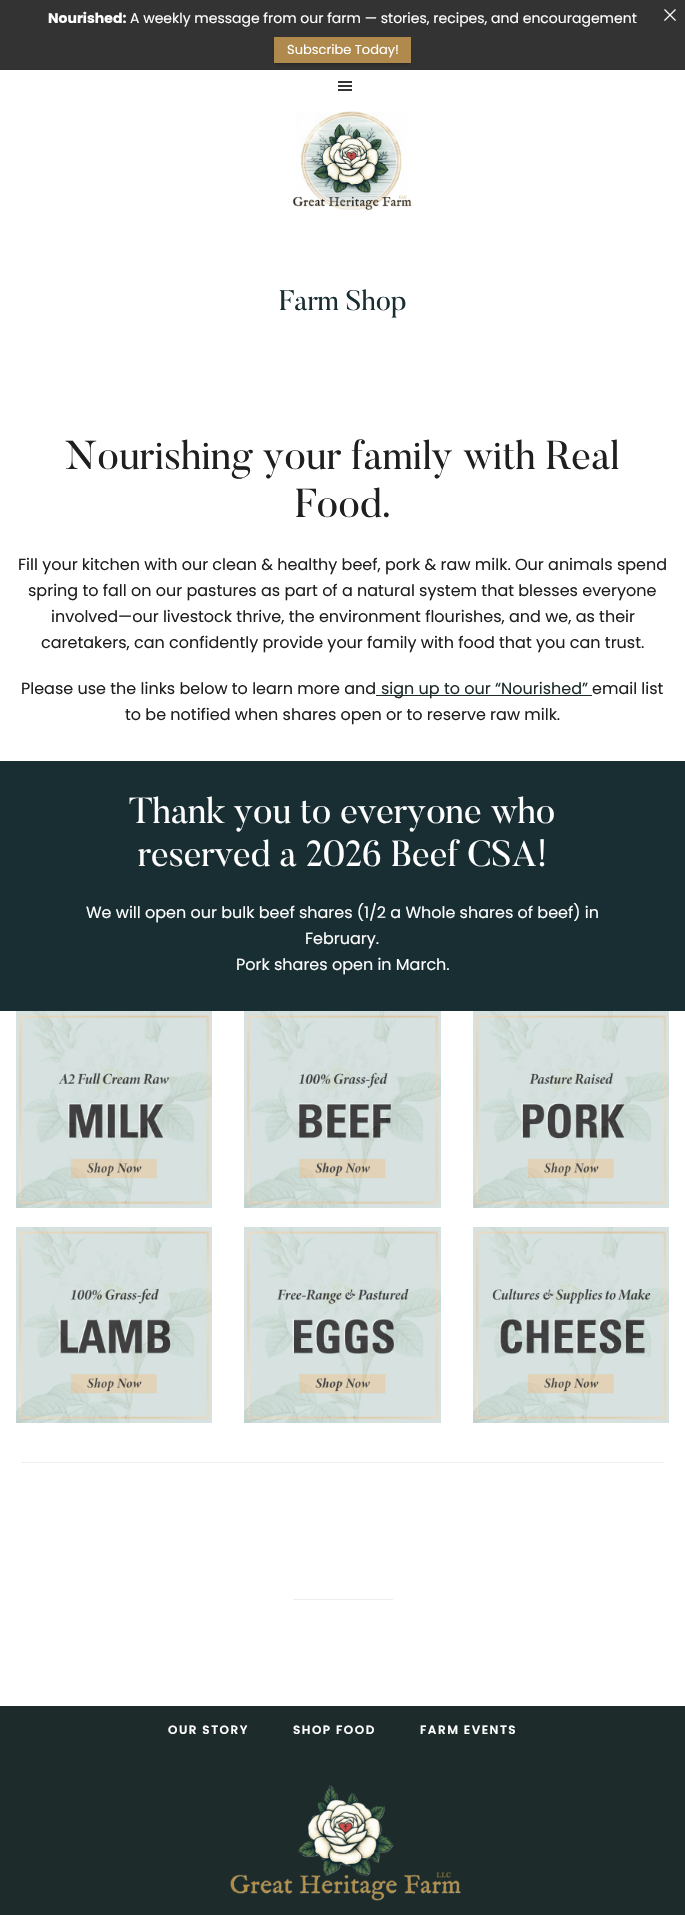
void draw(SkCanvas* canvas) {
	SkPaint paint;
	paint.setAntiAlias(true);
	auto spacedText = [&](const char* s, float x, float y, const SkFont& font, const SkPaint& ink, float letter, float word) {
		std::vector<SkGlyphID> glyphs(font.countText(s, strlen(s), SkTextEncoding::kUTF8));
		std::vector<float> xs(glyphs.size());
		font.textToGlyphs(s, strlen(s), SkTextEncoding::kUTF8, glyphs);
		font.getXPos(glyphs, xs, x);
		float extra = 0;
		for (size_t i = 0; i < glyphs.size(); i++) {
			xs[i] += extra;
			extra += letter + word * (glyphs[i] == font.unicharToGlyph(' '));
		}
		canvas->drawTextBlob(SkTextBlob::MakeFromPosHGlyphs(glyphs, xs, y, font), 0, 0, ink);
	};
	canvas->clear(0xffffffff);
	paint.setColor(0xff333333);
	canvas->drawRect(SkRect::MakeXYWH(0, 0, 685, 70), paint);
	SkFont f1(fontMgr->matchFamilyStyle("Poppins", SkFontStyle::Bold()), 14);
	f1.setSubpixel(true);
	paint.setColor(0xffffffff);
	canvas->drawString("Nourished:", 48, 23, f1, paint);
	SkFont f2(fontMgr->matchFamilyStyle("Poppins", SkFontStyle::Normal()), 14);
	f2.setSubpixel(true);
	canvas->drawString("A weekly message from our farm — stories, recipes, and encouragement", 130, 23, f2, paint);
	paint.setColor(0x80000000);
	paint.setMaskFilter(SkMaskFilter::MakeBlur(kNormal_SkBlurStyle, 2));
	canvas->drawRect(SkRect::MakeXYWH(276, 41, 133, 22), paint);
	paint.setMaskFilter(nullptr);
	paint.setColor(0xffb08a4c);
	canvas->drawRect(SkRect::MakeXYWH(274, 37, 137, 26), paint);
	SkFont f3(fontMgr->matchFamilyStyle("Poppins", SkFontStyle::Normal()), 13);
	f3.setSubpixel(true);
	paint.setColor(0xffffffff);
	canvas->drawString("Subscribe Today!", 287, 54, f3, paint);
	canvas->drawImageRect(SkImages::DeferredFromEncodedData(SkData::MakeFromFileName("img1.png")), SkRect::MakeXYWH(664, 9, 12, 12), SkSamplingOptions());
	canvas->drawImageRect(SkImages::DeferredFromEncodedData(SkData::MakeFromFileName("img2.png")), SkRect::MakeXYWH(338, 81, 14, 10), SkSamplingOptions());
	canvas->drawImageRect(SkImages::DeferredFromEncodedData(SkData::MakeFromFileName("img3.png")), SkRect::MakeXYWH(292, 111, 120, 99), SkSamplingOptions());
	SkFont f4(fontMgr->matchFamilyStyle("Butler", SkFontStyle::Normal()), 28);
	f4.setSubpixel(true);
	paint.setColor(0xff182e33);
	canvas->drawString("Farm Shop", 279, 310, f4, paint);
	SkFont f5(fontMgr->matchFamilyStyle("Butler", SkFontStyle::Normal()), 40);
	f5.setSubpixel(true);
	paint.setColor(0xff1f1f1f);
	canvas->drawString("Nourishing your family with Real", 65, 469, f5, paint);
	canvas->drawString("Food.", 295, 517, f5, paint);
	SkFont f6(fontMgr->matchFamilyStyle("Poppins", SkFontStyle::Normal()), 16);
	f6.setSubpixel(true);
	canvas->drawString("Fill your kitchen with our clean & healthy beef, pork & raw milk. Our animals spend", 18, 570, f6, paint);
	canvas->drawString("spring to fall on our pastures as part of a natural system that blesses everyone", 28, 596, f6, paint);
	canvas->drawString("involved—our livestock thrive, the environment flourishes, and we, as their", 51, 622, f6, paint);
	canvas->drawString("caretakers, can confidently provide your family with food that you can trust.", 41, 648, f6, paint);
	canvas->drawString("Please use the links below to learn more and", 21, 694, f6, paint);
	paint.setColor(0xff1d2b2b);
	canvas->drawRect(SkRect::MakeXYWH(376, 695, 216, 1), paint);
	canvas->drawString("sign up to our “Nourished”", 381, 694, f6, paint);
	paint.setColor(0xff1f1f1f);
	canvas->drawString("email list", 592, 694, f6, paint);
	canvas->drawString("to be notified when shares open or to reserve raw milk.", 125, 720, f6, paint);
	paint.setColor(0xff182e33);
	canvas->drawRect(SkRect::MakeXYWH(0, 761, 685, 250), paint);
	SkFont f7(fontMgr->matchFamilyStyle("Butler", SkFontStyle::Normal()), 36);
	f7.setSubpixel(true);
	paint.setColor(0xffffffff);
	canvas->drawString("Thank you to everyone who", 129, 823, f7, paint);
	canvas->drawString("reserved a 2026 Beef CSA!", 138, 866, f7, paint);
	canvas->drawString("We will open our bulk beef shares (1/2 a Whole shares of beef) in", 86, 918, f6, paint);
	canvas->drawString("February.", 305, 944, f6, paint);
	canvas->drawString("Pork shares open in March.", 236, 970, f6, paint);
	canvas->drawImageRect(SkImages::DeferredFromEncodedData(SkData::MakeFromFileName("img4.png")), SkRect::MakeXYWH(16, 1011, 196, 197), SkSamplingOptions());
	canvas->drawImageRect(SkImages::DeferredFromEncodedData(SkData::MakeFromFileName("img5.png")), SkRect::MakeXYWH(244, 1011, 197, 197), SkSamplingOptions());
	canvas->drawImageRect(SkImages::DeferredFromEncodedData(SkData::MakeFromFileName("img6.png")), SkRect::MakeXYWH(473, 1011, 196, 197), SkSamplingOptions());
	canvas->drawImageRect(SkImages::DeferredFromEncodedData(SkData::MakeFromFileName("img7.png")), SkRect::MakeXYWH(16, 1227, 196, 196), SkSamplingOptions());
	canvas->drawImageRect(SkImages::DeferredFromEncodedData(SkData::MakeFromFileName("img8.png")), SkRect::MakeXYWH(244, 1227, 197, 196), SkSamplingOptions());
	canvas->drawImageRect(SkImages::DeferredFromEncodedData(SkData::MakeFromFileName("img9.png")), SkRect::MakeXYWH(473, 1227, 196, 196), SkSamplingOptions());
	paint.setColor(0xffeeeeee);
	canvas->drawRect(SkRect::MakeXYWH(21, 1462, 643, 1), paint);
	canvas->drawRect(SkRect::MakeXYWH(293, 1599, 100, 1), paint);
	paint.setColor(0xff1d2b2b);
	canvas->drawRect(SkRect::MakeXYWH(0, 1706, 685, 209), paint);
	SkFont f8(fontMgr->matchFamilyStyle("Poppins", SkFontStyle(600, SkFontStyle::kNormal_Width, SkFontStyle::kUpright_Slant)), 12);
	f8.setSubpixel(true);
	paint.setColor(0xffffffff);
	spacedText("OUR STORY", 168, 1734, f8, paint, 1.5, 0);
	spacedText("SHOP FOOD", 293, 1734, f8, paint, 1.5, 0);
	spacedText("FARM EVENTS", 420, 1734, f8, paint, 1.5, 0);
	canvas->drawImageRect(SkImages::DeferredFromEncodedData(SkData::MakeFromFileName("img10.png")), SkRect::MakeXYWH(230, 1785, 231, 116), SkSamplingOptions());
}
